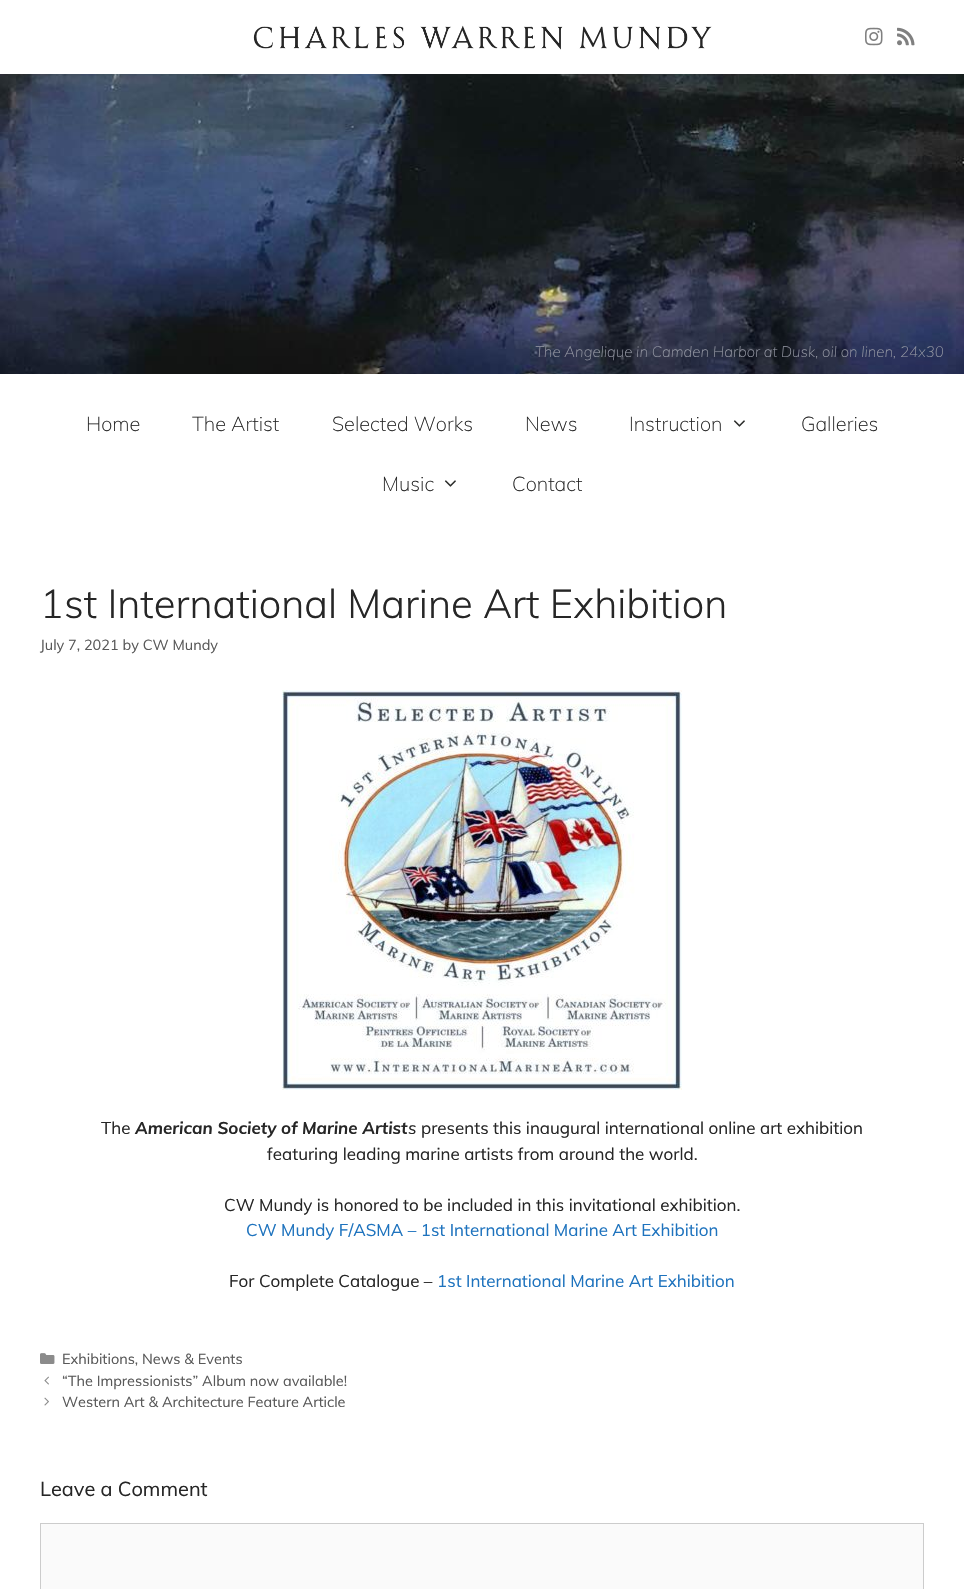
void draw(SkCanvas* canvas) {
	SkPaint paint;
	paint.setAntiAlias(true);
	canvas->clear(0xffffffff);
	canvas->drawImageRect(SkImages::DeferredFromEncodedData(SkData::MakeFromFileName("img1.png")), SkRect::MakeXYWH(253, 25, 459, 25), SkSamplingOptions());
	canvas->drawImageRect(SkImages::DeferredFromEncodedData(SkData::MakeFromFileName("img2.png")), SkRect::MakeXYWH(865, 27, 18, 19), SkSamplingOptions());
	canvas->drawImageRect(SkImages::DeferredFromEncodedData(SkData::MakeFromFileName("img3.png")), SkRect::MakeXYWH(897, 27, 18, 19), SkSamplingOptions());
	canvas->drawImageRect(SkImages::DeferredFromEncodedData(SkData::MakeFromFileName("img4.png")), SkRect::MakeXYWH(0, 74, 964, 300), SkSamplingOptions());
	SkFont f1(fontMgr->matchFamilyStyle("Muli", SkFontStyle(200, SkFontStyle::kNormal_Width, SkFontStyle::kItalic_Slant)), 15);
	f1.setSubpixel(true);
	paint.setColor(0xff9497a3);
	canvas->drawString("The Angelique in Camden Harbor at Dusk, oil on linen, 24x30", 535, 357, f1, paint);
	SkFont f2(fontMgr->matchFamilyStyle("Muli", SkFontStyle(200, SkFontStyle::kNormal_Width, SkFontStyle::kUpright_Slant)), 20);
	f2.setSubpixel(true);
	paint.setColor(0xff262626);
	canvas->drawString("Home", 86, 431, f2, paint);
	canvas->drawString("The Artist", 192, 431, f2, paint);
	canvas->drawString("Selected Works", 332, 431, f2, paint);
	canvas->drawString("News", 525, 431, f2, paint);
	canvas->drawString("Instruction", 629, 431, f2, paint);
	canvas->drawImageRect(SkImages::DeferredFromEncodedData(SkData::MakeFromFileName("img5.png")), SkRect::MakeXYWH(733, 420, 12, 7), SkSamplingOptions());
	canvas->drawString("Galleries", 801, 431, f2, paint);
	canvas->drawString("Music", 382, 491, f2, paint);
	canvas->drawImageRect(SkImages::DeferredFromEncodedData(SkData::MakeFromFileName("img5.png")), SkRect::MakeXYWH(444, 480, 12, 7), SkSamplingOptions());
	canvas->drawString("Contact", 512, 491, f2, paint);
	SkFont f3(fontMgr->matchFamilyStyle("Muli", SkFontStyle(300, SkFontStyle::kNormal_Width, SkFontStyle::kUpright_Slant)), 40);
	f3.setSubpixel(true);
	canvas->drawString("1st International Marine Art Exhibition", 40, 618, f3, paint);
	SkFont f4(fontMgr->matchFamilyStyle("Muli", SkFontStyle::Normal()), 14.5);
	f4.setSubpixel(true);
	paint.setColor(0xff595959);
	canvas->drawString("July 7, 2021 by CW Mundy", 40, 650, f4, paint);
	canvas->drawImageRect(SkImages::DeferredFromEncodedData(SkData::MakeFromFileName("img6.png")), SkRect::MakeXYWH(282, 690, 400, 400), SkSamplingOptions());
	SkFont f5(fontMgr->matchFamilyStyle("Muli", SkFontStyle::Normal()), 17);
	f5.setSubpixel(true);
	paint.setColor(0xff262626);
	canvas->drawString("The", 101, 1134, f5, paint);
	SkFont f6(fontMgr->matchFamilyStyle("Muli", SkFontStyle::BoldItalic()), 17);
	f6.setSubpixel(true);
	canvas->drawString("American Society of Marine Artist", 135, 1134, f6, paint);
	SkFont f7(fontMgr->matchFamilyStyle("Muli", SkFontStyle::Italic()), 17);
	f7.setSubpixel(true);
	canvas->drawString("s", 408, 1134, f7, paint);
	canvas->drawString("presents this inaugural international online art exhibition", 421, 1134, f5, paint);
	canvas->drawString("featuring leading marine artists from around the world.", 267, 1160, f5, paint);
	canvas->drawString("CW Mundy is honored to be included in this invitational exhibition.", 224, 1211, f5, paint);
	paint.setColor(0xff1e73be);
	canvas->drawString("CW Mundy F/ASMA – 1st International Marine Art Exhibition", 246, 1236, f5, paint);
	paint.setColor(0xff262626);
	canvas->drawString("For Complete Catalogue –", 229, 1287, f5, paint);
	paint.setColor(0xff1e73be);
	canvas->drawString("1st International Marine Art Exhibition", 437, 1287, f5, paint);
	canvas->drawImageRect(SkImages::DeferredFromEncodedData(SkData::MakeFromFileName("img7.png")), SkRect::MakeXYWH(40, 1353, 15, 11), SkSamplingOptions());
	paint.setColor(0xff595959);
	canvas->drawString("Exhibitions, News & Events", 62, 1364, f4, paint);
	canvas->drawImageRect(SkImages::DeferredFromEncodedData(SkData::MakeFromFileName("img8.png")), SkRect::MakeXYWH(44, 1376, 5, 9), SkSamplingOptions());
	canvas->drawString("“The Impressionists” Album now available!", 62, 1386, f4, paint);
	canvas->drawImageRect(SkImages::DeferredFromEncodedData(SkData::MakeFromFileName("img9.png")), SkRect::MakeXYWH(44, 1397, 5, 9), SkSamplingOptions());
	canvas->drawString("Western Art & Architecture Feature Article", 62, 1407, f4, paint);
	SkFont f8(fontMgr->matchFamilyStyle("Muli", SkFontStyle::Normal()), 20);
	f8.setSubpixel(true);
	paint.setColor(0xff262626);
	canvas->drawString("Leave a Comment", 40, 1496, f8, paint);
	paint.setColor(0xfffafafa);
	canvas->drawRect(SkRect::MakeXYWH(40.5, 1523.5, 883, 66), paint);
	paint.setStroke(true);
	paint.setStrokeWidth(1);
	paint.setColor(0xffcccccc);
	canvas->drawRect(SkRect::MakeXYWH(40.5, 1523.5, 883, 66), paint);
}
